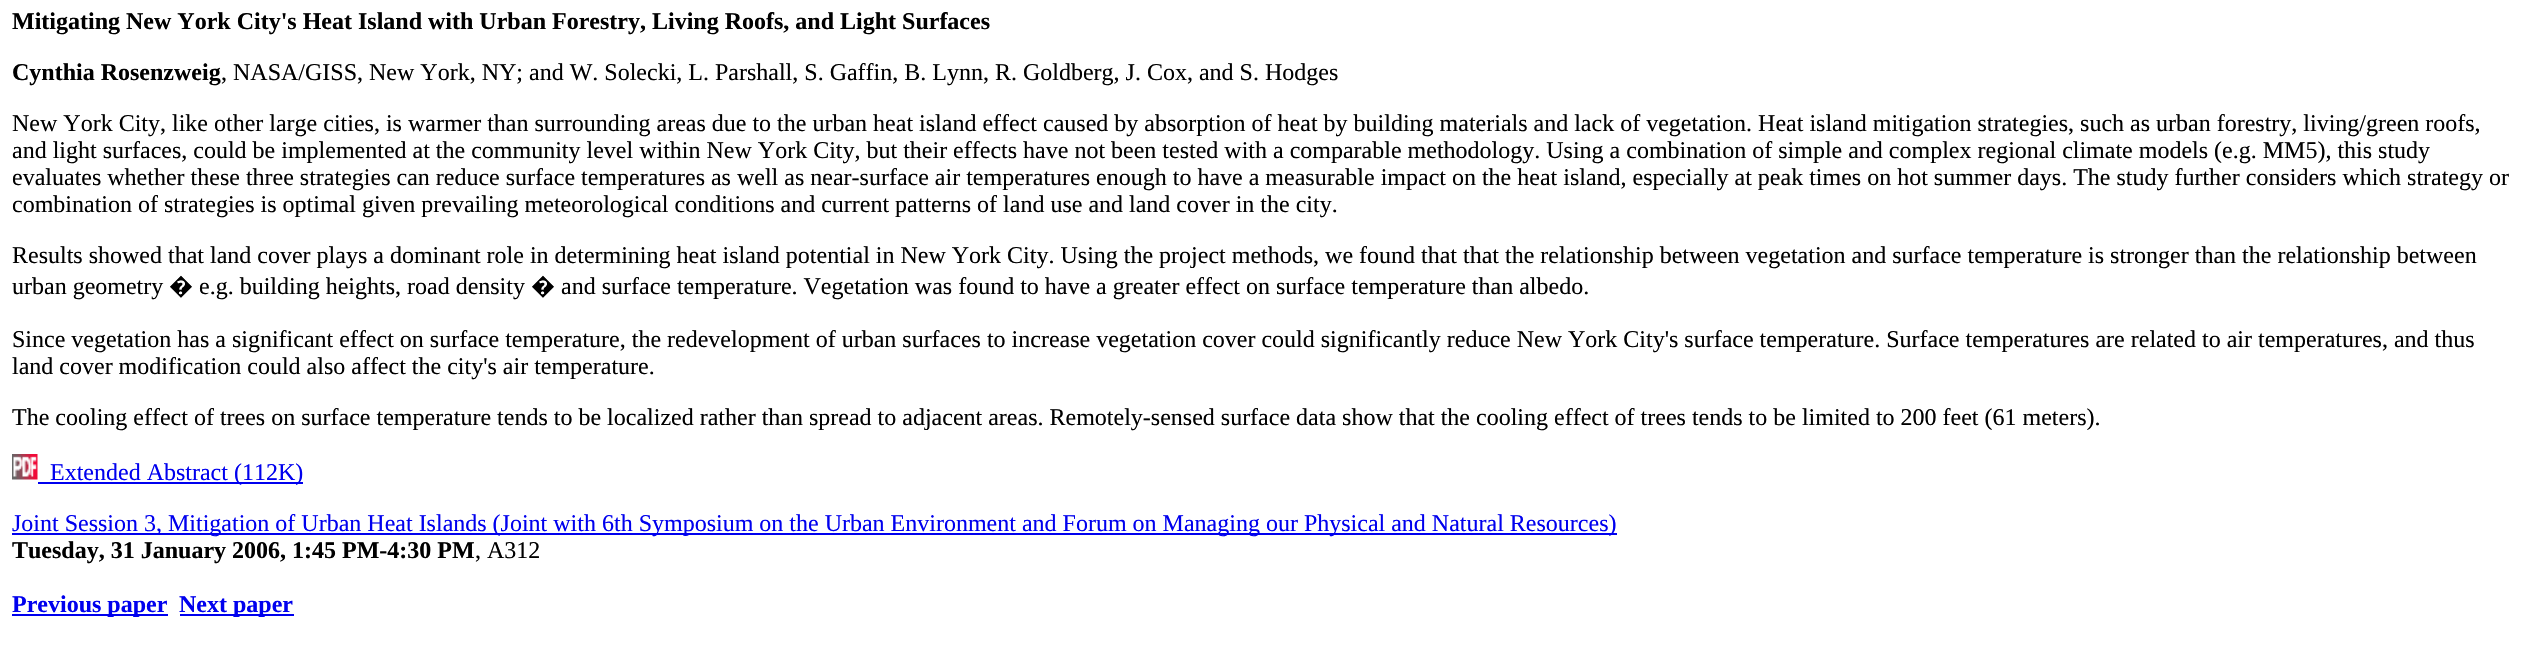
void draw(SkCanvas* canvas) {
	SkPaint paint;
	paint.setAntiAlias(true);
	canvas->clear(0xffffffff);
	SkFont f1(fontMgr->matchFamilyStyle("Liberation Serif", SkFontStyle::Bold()), 24);
	f1.setSubpixel(true);
	paint.setColor(0xff000000);
	canvas->drawString("Mitigating New York City's Heat Island with Urban Forestry, Living Roofs, and Light Surfaces", 12, 29, f1, paint);
	canvas->drawString("Cynthia Rosenzweig", 12, 80, f1, paint);
	SkFont f2(fontMgr->matchFamilyStyle("Liberation Serif", SkFontStyle::Normal()), 24);
	f2.setSubpixel(true);
	canvas->drawString(", NASA/GISS, New York, NY; and W. Solecki, L. Parshall, S. Gaffin, B. Lynn, R. Goldberg, J. Cox, and S. Hodges", 221, 80, f2, paint);
	canvas->drawString("New York City, like other large cities, is warmer than surrounding areas due to the urban heat island effect caused by absorption of heat by building materials and lack of vegetation. Heat island mitigation strategies, such as urban forestry, living/green roofs,", 12, 131, f2, paint);
	canvas->drawString("and light surfaces, could be implemented at the community level within New York City, but their effects have not been tested with a comparable methodology. Using a combination of simple and complex regional climate models (e.g. MM5), this study", 12, 158, f2, paint);
	canvas->drawString("evaluates whether these three strategies can reduce surface temperatures as well as near-surface air temperatures enough to have a measurable impact on the heat island, especially at peak times on hot summer days. The study further considers which strategy or", 12, 185, f2, paint);
	canvas->drawString("combination of strategies is optimal given prevailing meteorological conditions and current patterns of land use and land cover in the city.", 12, 212, f2, paint);
	canvas->drawString("Results showed that land cover plays a dominant role in determining heat island potential in New York City. Using the project methods, we found that that the relationship between vegetation and surface temperature is stronger than the relationship between", 12, 263, f2, paint);
	canvas->drawString("urban geometry", 12, 294, f2, paint);
	SkFont f3(fontMgr->matchFamilyStyle("Noto Sans", SkFontStyle::Normal()), 24);
	f3.setSubpixel(true);
	canvas->drawString("�", 169, 294, f3, paint);
	canvas->drawString("e.g. building heights, road density", 199, 294, f2, paint);
	canvas->drawString("�", 531, 294, f3, paint);
	canvas->drawString("and surface temperature. Vegetation was found to have a greater effect on surface temperature than albedo.", 561, 294, f2, paint);
	canvas->drawString("Since vegetation has a significant effect on surface temperature, the redevelopment of urban surfaces to increase vegetation cover could significantly reduce New York City's surface temperature. Surface temperatures are related to air temperatures, and thus", 12, 347, f2, paint);
	canvas->drawString("land cover modification could also affect the city's air temperature.", 12, 374, f2, paint);
	canvas->drawString("The cooling effect of trees on surface temperature tends to be localized rather than spread to adjacent areas. Remotely-sensed surface data show that the cooling effect of trees tends to be limited to 200 feet (61 meters).", 12, 425, f2, paint);
	canvas->drawImageRect(SkImages::DeferredFromEncodedData(SkData::MakeFromFileName("img1.png")), SkRect::MakeXYWH(12, 454, 26, 26), SkSamplingOptions());
	paint.setColor(0xff0000ee);
	canvas->drawRect(SkRect::MakeXYWH(38, 482, 265, 2), paint);
	canvas->drawString("Extended Abstract (112K)", 50, 480, f2, paint);
	canvas->drawRect(SkRect::MakeXYWH(12, 533, 1605, 2), paint);
	canvas->drawString("Joint Session 3, Mitigation of Urban Heat Islands (Joint with 6th Symposium on the Urban Environment and Forum on Managing our Physical and Natural Resources)", 12, 531, f2, paint);
	paint.setColor(0xff000000);
	canvas->drawString("Tuesday, 31 January 2006, 1:45 PM-4:30 PM", 12, 558, f1, paint);
	canvas->drawString(", A312", 475, 558, f2, paint);
	paint.setColor(0xff0000ee);
	canvas->drawRect(SkRect::MakeXYWH(12, 614, 156, 2), paint);
	canvas->drawString("Previous paper", 12, 612, f1, paint);
	canvas->drawRect(SkRect::MakeXYWH(180, 614, 114, 2), paint);
	canvas->drawString("Next paper", 179, 612, f1, paint);
}
